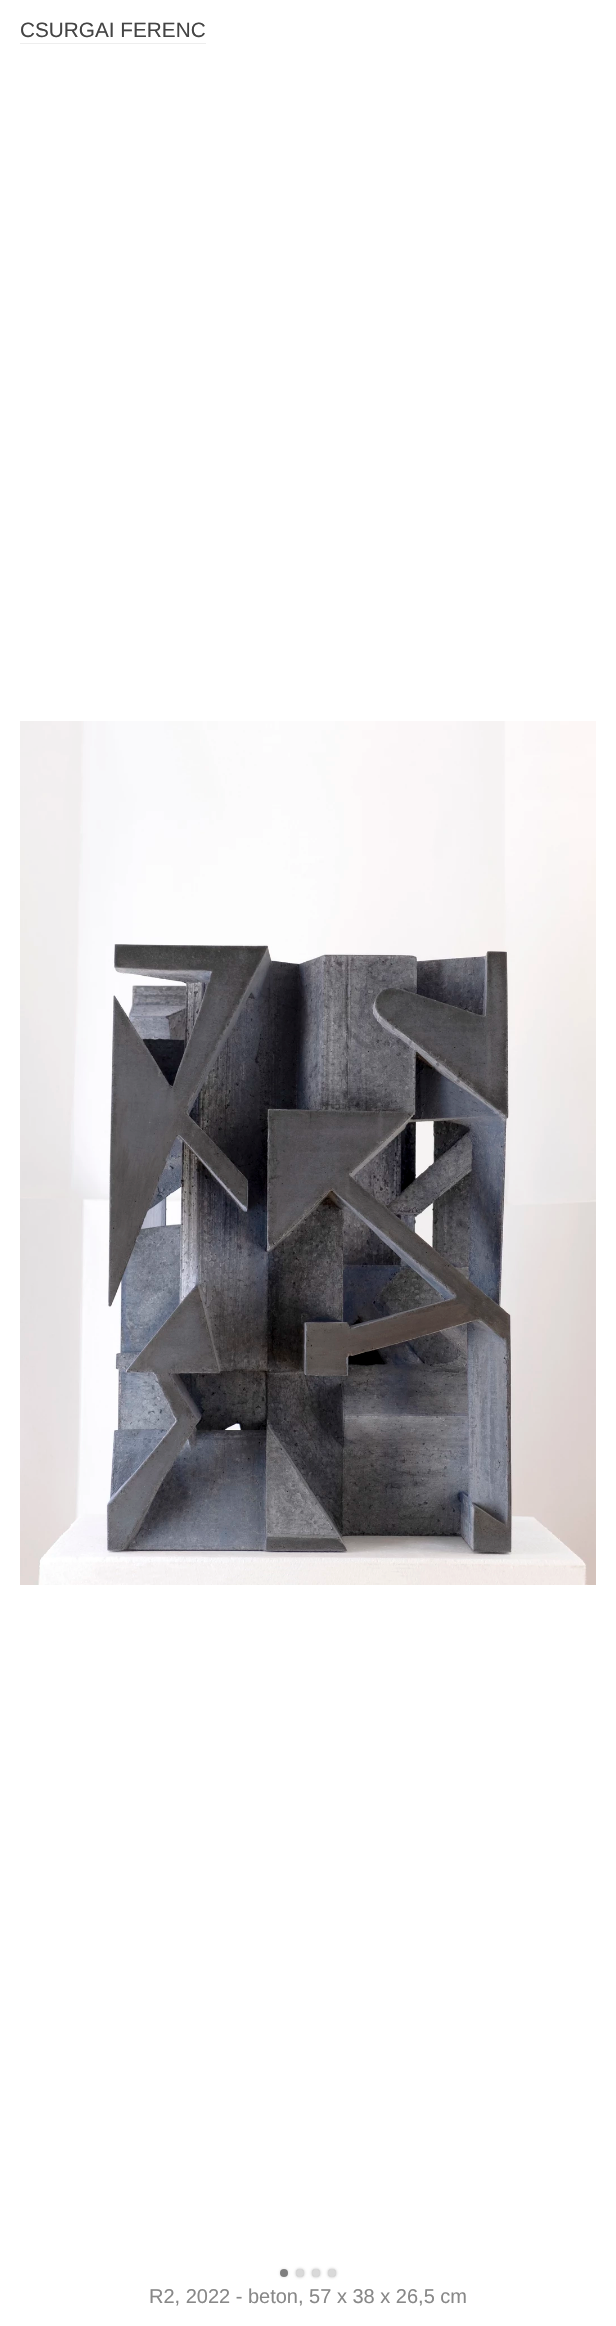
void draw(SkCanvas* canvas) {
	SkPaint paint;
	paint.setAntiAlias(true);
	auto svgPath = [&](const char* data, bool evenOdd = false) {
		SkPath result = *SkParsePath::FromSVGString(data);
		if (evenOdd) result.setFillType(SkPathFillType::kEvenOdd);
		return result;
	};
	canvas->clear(0xffffffff);
	SkFont f1(fontMgr->matchFamilyStyle("Liberation Sans", SkFontStyle::Normal()), 20.75);
	f1.setSubpixel(true);
	paint.setColor(0xff444444);
	canvas->drawString("CSURGAI FERENC", 20, 37, f1, paint);
	paint.setColor(0xffeeeeee);
	canvas->drawRect(SkRect::MakeXYWH(20, 43, 186, 1), paint);
	canvas->drawImageRect(SkImages::DeferredFromEncodedData(SkData::MakeFromFileName("img1.png")), SkRect::MakeXYWH(20, 721, 576, 864), SkSamplingOptions());
	canvas->save();
	canvas->clipPath(svgPath("M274 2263H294V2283H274ZM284 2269C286 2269 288 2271 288 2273C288 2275 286 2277 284 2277C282 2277 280 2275 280 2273C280 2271 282 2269 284 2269Z", true), true);
	paint.setColor(0x4d808080);
	paint.setMaskFilter(SkMaskFilter::MakeBlur(kNormal_SkBlurStyle, 1.5));
	canvas->drawRoundRect(SkRect::MakeXYWH(280, 2269, 8, 8), 4, 4, paint);
	paint.setMaskFilter(nullptr);
	canvas->restore();
	paint.setColor(0x80000000);
	canvas->drawCircle(284, 2273, 4, paint);
	canvas->save();
	canvas->clipPath(svgPath("M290 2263H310V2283H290ZM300 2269C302 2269 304 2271 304 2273C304 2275 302 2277 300 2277C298 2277 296 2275 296 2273C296 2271 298 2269 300 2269Z", true), true);
	paint.setColor(0x4d000000);
	paint.setMaskFilter(SkMaskFilter::MakeBlur(kNormal_SkBlurStyle, 1.5));
	canvas->drawRoundRect(SkRect::MakeXYWH(296, 2269, 8, 8), 4, 4, paint);
	paint.setMaskFilter(nullptr);
	canvas->restore();
	paint.setColor(0x4d808080);
	canvas->drawCircle(300, 2273, 4, paint);
	canvas->save();
	canvas->clipPath(svgPath("M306 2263H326V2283H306ZM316 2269C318 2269 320 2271 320 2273C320 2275 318 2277 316 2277C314 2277 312 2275 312 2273C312 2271 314 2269 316 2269Z", true), true);
	paint.setColor(0x4d000000);
	paint.setMaskFilter(SkMaskFilter::MakeBlur(kNormal_SkBlurStyle, 1.5));
	canvas->drawRoundRect(SkRect::MakeXYWH(312, 2269, 8, 8), 4, 4, paint);
	paint.setMaskFilter(nullptr);
	canvas->restore();
	paint.setColor(0x4d808080);
	canvas->drawCircle(316, 2273, 4, paint);
	canvas->save();
	canvas->clipPath(svgPath("M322 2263H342V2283H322ZM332 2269C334 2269 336 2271 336 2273C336 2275 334 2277 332 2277C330 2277 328 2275 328 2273C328 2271 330 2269 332 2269Z", true), true);
	paint.setColor(0x4d000000);
	paint.setMaskFilter(SkMaskFilter::MakeBlur(kNormal_SkBlurStyle, 1.5));
	canvas->drawRoundRect(SkRect::MakeXYWH(328, 2269, 8, 8), 4, 4, paint);
	paint.setMaskFilter(nullptr);
	canvas->restore();
	paint.setColor(0x4d808080);
	canvas->drawCircle(332, 2273, 4, paint);
	SkFont f2(fontMgr->matchFamilyStyle("Liberation Sans", SkFontStyle::Normal()), 20);
	f2.setSubpixel(true);
	paint.setColor(0xff888888);
	canvas->drawString("R2, 2022 - beton, 57 x 38 x 26,5 cm", 149, 2303, f2, paint);
}
